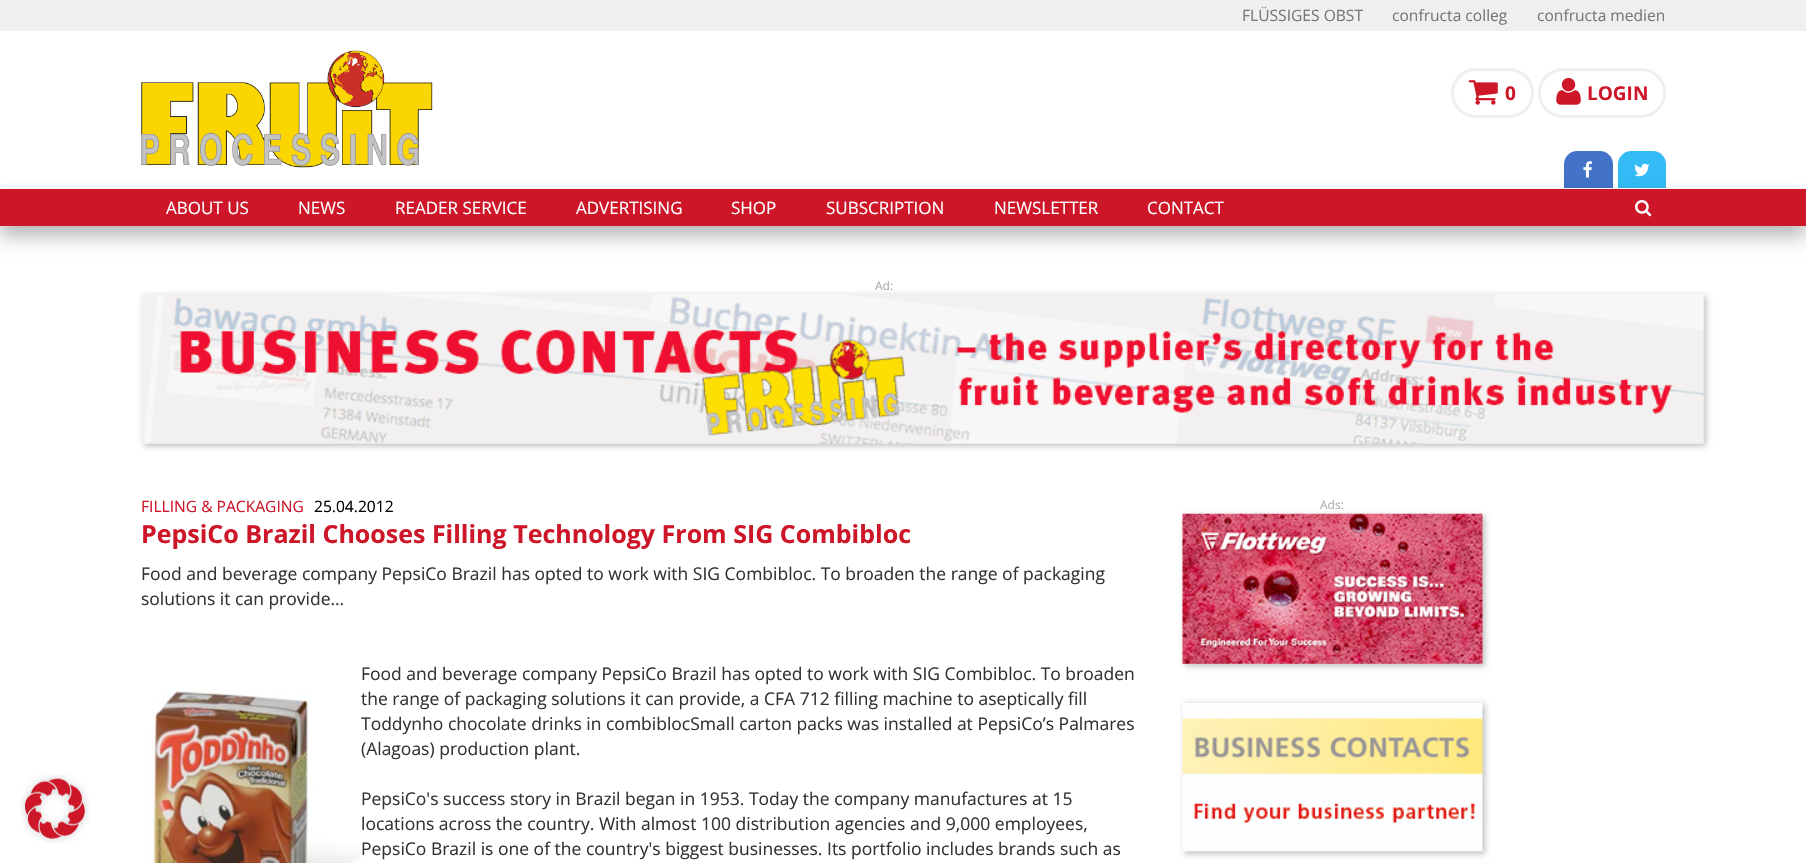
void draw(SkCanvas* canvas) {
	SkPaint paint;
	paint.setAntiAlias(true);
	auto svgPath = [&](const char* data, bool evenOdd = false) {
		SkPath result = *SkParsePath::FromSVGString(data);
		if (evenOdd) result.setFillType(SkPathFillType::kEvenOdd);
		return result;
	};
	canvas->clear(0xffffffff);
	paint.setColor(0xffefefef);
	canvas->drawRect(SkRect::MakeXYWH(0, 0, 1806, 31), paint);
	SkFont f1(fontMgr->matchFamilyStyle("Open Sans", SkFontStyle::Normal()), 15.6);
	f1.setSubpixel(true);
	paint.setColor(0xff777777);
	canvas->drawString("FLÜSSIGES OBST", 1242, 21, f1, paint);
	canvas->drawString("confructa colleg", 1392, 21, f1, paint);
	canvas->drawString("confructa medien", 1537, 21, f1, paint);
	canvas->drawImageRect(SkImages::DeferredFromEncodedData(SkData::MakeFromFileName("img1.png")), SkRect::MakeXYWH(141, 50, 292, 118), SkSamplingOptions());
	paint.setStroke(true);
	paint.setStrokeWidth(3);
	paint.setColor(0xffefefef);
	canvas->drawRoundRect(SkRect::MakeXYWH(1452.5, 69.5, 80, 47), 23.5, 23.5, paint);
	canvas->drawImageRect(SkImages::DeferredFromEncodedData(SkData::MakeFromFileName("img2.png")), SkRect::MakeXYWH(1468, 80, 30, 25), SkSamplingOptions());
	SkFont f2(fontMgr->matchFamilyStyle("Open Sans", SkFontStyle::Bold()), 19);
	f2.setSubpixel(true);
	paint.setStroke(false);
	paint.setColor(0xffcd1628);
	canvas->drawString("0", 1505, 100, f2, paint);
	paint.setStroke(true);
	paint.setColor(0xffefefef);
	canvas->drawRoundRect(SkRect::MakeXYWH(1539.5, 69.5, 125, 47), 23.5, 23.5, paint);
	canvas->drawImageRect(SkImages::DeferredFromEncodedData(SkData::MakeFromFileName("img3.png")), SkRect::MakeXYWH(1556, 77, 25, 28), SkSamplingOptions());
	paint.setStroke(false);
	paint.setColor(0xffcd1628);
	canvas->drawString("LOGIN", 1587, 100, f2, paint);
	paint.setColor(0xff4273c8);
	canvas->drawPath(svgPath("M1577 151H1600C1607 151 1613 157 1613 164V189H1564V164C1564 157 1570 151 1577 151Z"), paint);
	paint.setColor(0xffffffff);
	canvas->drawRect(SkRect::MakeXYWH(1564, 188, 49, 1), paint);
	canvas->drawImageRect(SkImages::DeferredFromEncodedData(SkData::MakeFromFileName("img4.png")), SkRect::MakeXYWH(1583, 161, 9, 17), SkSamplingOptions());
	paint.setColor(0xff32bbf5);
	canvas->drawPath(svgPath("M1631 151H1653C1660 151 1666 157 1666 164V189H1618V164C1618 157 1624 151 1631 151Z"), paint);
	paint.setColor(0xffffffff);
	canvas->drawRect(SkRect::MakeXYWH(1618, 188, 48, 1), paint);
	canvas->drawImageRect(SkImages::DeferredFromEncodedData(SkData::MakeFromFileName("img5.png")), SkRect::MakeXYWH(1634, 163, 16, 14), SkSamplingOptions());
	paint.setColor(0x4a000000);
	paint.setMaskFilter(SkMaskFilter::MakeBlur(kNormal_SkBlurStyle, 9.5));
	canvas->drawRect(SkRect::MakeXYWH(0, 199, 1806, 37), paint);
	paint.setMaskFilter(nullptr);
	paint.setColor(0xffcd1628);
	canvas->drawRect(SkRect::MakeXYWH(0, 189, 1806, 37), paint);
	SkFont f3(fontMgr->matchFamilyStyle("Open Sans", SkFontStyle::Normal()), 17);
	f3.setSubpixel(true);
	paint.setColor(0xffffffff);
	canvas->drawString("ABOUT US", 166, 214, f3, paint);
	canvas->drawString("NEWS", 298, 214, f3, paint);
	canvas->drawString("READER SERVICE", 395, 214, f3, paint);
	canvas->drawString("ADVERTISING", 576, 214, f3, paint);
	canvas->drawString("SHOP", 731, 214, f3, paint);
	canvas->drawString("SUBSCRIPTION", 826, 214, f3, paint);
	canvas->drawString("NEWSLETTER", 994, 214, f3, paint);
	canvas->drawString("CONTACT", 1147, 214, f3, paint);
	canvas->drawImageRect(SkImages::DeferredFromEncodedData(SkData::MakeFromFileName("img6.png")), SkRect::MakeXYWH(1635, 200, 17, 17), SkSamplingOptions());
	canvas->drawImageRect(SkImages::DeferredFromEncodedData(SkData::MakeFromFileName("img7.png")), SkRect::MakeXYWH(20, 774, 70, 69), SkSamplingOptions());
	SkFont f4(fontMgr->matchFamilyStyle("Open Sans", SkFontStyle::Normal()), 12);
	f4.setSubpixel(true);
	paint.setColor(0xffaaaaaa);
	canvas->drawString("Ad:", 875, 290, f4, paint);
	paint.setColor(0x40000000);
	paint.setMaskFilter(SkMaskFilter::MakeBlur(kNormal_SkBlurStyle, 3));
	canvas->drawRect(SkRect::MakeXYWH(144, 296, 1562, 150), paint);
	paint.setMaskFilter(nullptr);
	canvas->drawImageRect(SkImages::DeferredFromEncodedData(SkData::MakeFromFileName("img8.png")), SkRect::MakeXYWH(141, 294, 1563, 150), SkSamplingOptions());
	paint.setColor(0xffcd1628);
	canvas->drawString("FILLING & PACKAGING", 141, 512, f1, paint);
	paint.setColor(0xff000000);
	canvas->drawString("25.04.2012", 314, 512, f1, paint);
	SkFont f5(fontMgr->matchFamilyStyle("Open Sans", SkFontStyle::Bold()), 25);
	f5.setSubpixel(true);
	paint.setColor(0xffcd1628);
	canvas->drawString("PepsiCo Brazil Chooses Filling Technology From SIG Combibloc", 141, 543, f5, paint);
	SkFont f6(fontMgr->matchFamilyStyle("Open Sans", SkFontStyle::Normal()), 17.5);
	f6.setSubpixel(true);
	paint.setColor(0xff333333);
	canvas->drawString("Food and beverage company PepsiCo Brazil has opted to work with SIG Combibloc. To broaden the range of packaging", 141, 580, f6, paint);
	canvas->drawString("solutions it can provide…", 141, 605, f6, paint);
	canvas->drawString("Food and beverage company PepsiCo Brazil has opted to work with SIG Combibloc. To broaden", 361, 680, f6, paint);
	canvas->drawImageRect(SkImages::DeferredFromEncodedData(SkData::MakeFromFileName("img9.png")), SkRect::MakeXYWH(144, 689, 217, 174), SkSamplingOptions());
	canvas->drawString("the range of packaging solutions it can provide, a CFA 712 filling machine to aseptically fill", 361, 705, f6, paint);
	canvas->drawString("Toddynho chocolate drinks in combiblocSmall carton packs was installed at PepsiCo’s Palmares", 361, 730, f6, paint);
	canvas->drawString("(Alagoas) production plant.", 361, 755, f6, paint);
	canvas->drawString("PepsiCo's success story in Brazil began in 1953. Today the company manufactures at 15", 361, 805, f6, paint);
	canvas->drawString("locations across the country. With almost 100 distribution agencies and 9,000 employees,", 361, 830, f6, paint);
	canvas->drawString("PepsiCo Brazil is one of the country's biggest businesses. Its portfolio includes brands such as", 361, 855, f6, paint);
	paint.setColor(0xffaaaaaa);
	canvas->drawString("Ads:", 1320, 509, f4, paint);
	paint.setColor(0x40000000);
	paint.setMaskFilter(SkMaskFilter::MakeBlur(kNormal_SkBlurStyle, 3));
	canvas->drawRect(SkRect::MakeXYWH(1185, 516, 300, 150), paint);
	paint.setMaskFilter(nullptr);
	canvas->drawImageRect(SkImages::DeferredFromEncodedData(SkData::MakeFromFileName("img10.png")), SkRect::MakeXYWH(1182, 513, 301, 151), SkSamplingOptions());
	paint.setMaskFilter(SkMaskFilter::MakeBlur(kNormal_SkBlurStyle, 3));
	canvas->drawRect(SkRect::MakeXYWH(1185, 704, 300, 150), paint);
	paint.setMaskFilter(nullptr);
	canvas->drawImageRect(SkImages::DeferredFromEncodedData(SkData::MakeFromFileName("img11.png")), SkRect::MakeXYWH(1182, 703, 301, 149), SkSamplingOptions());
}
